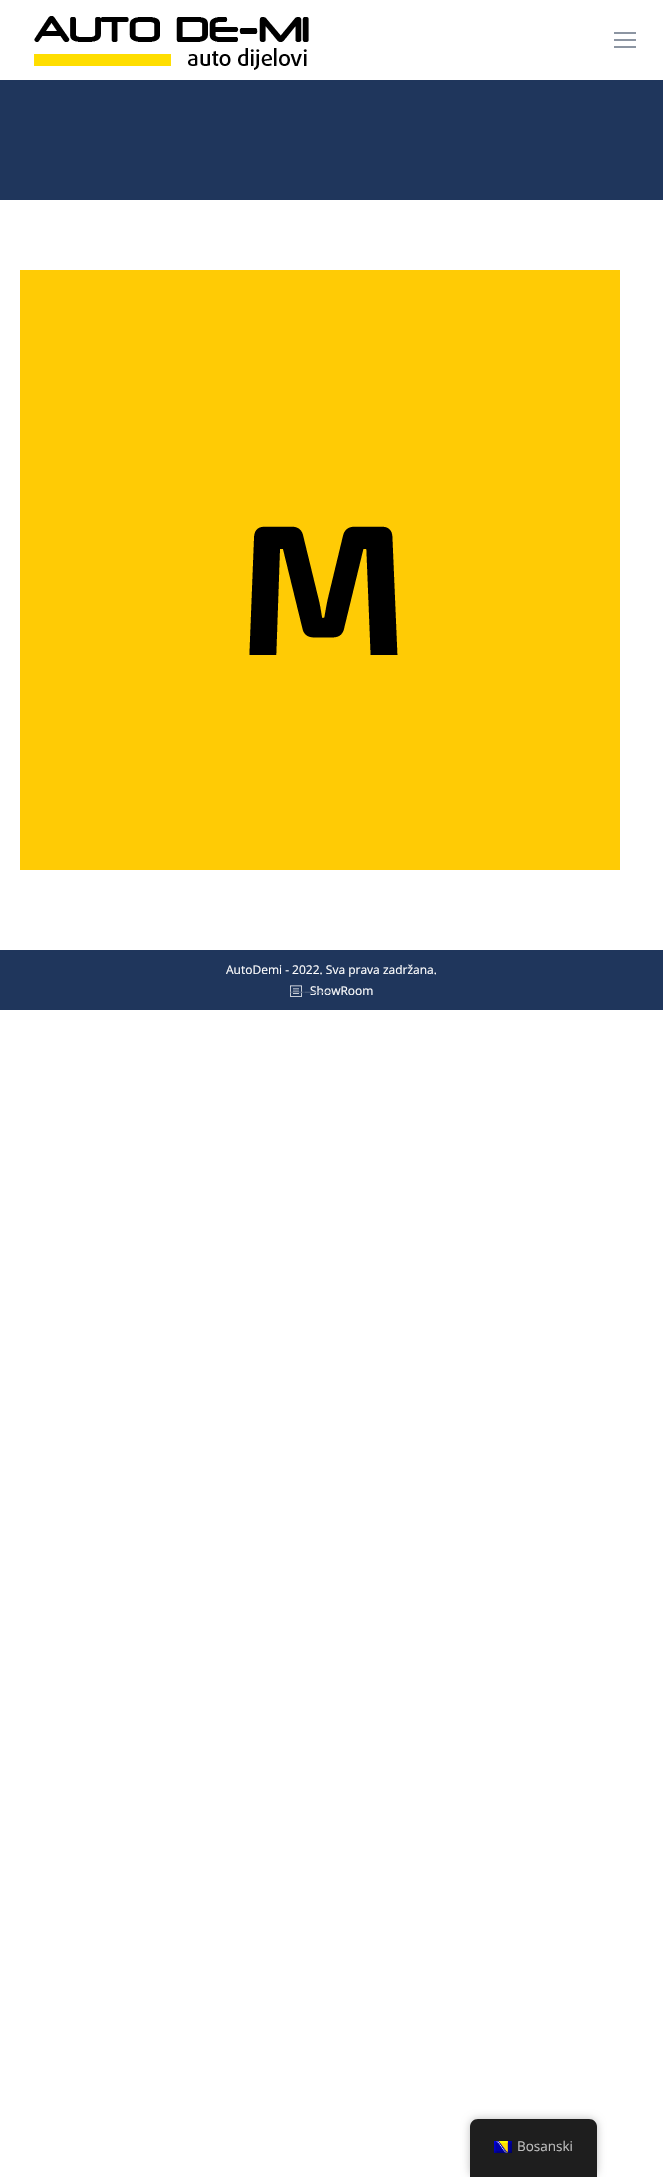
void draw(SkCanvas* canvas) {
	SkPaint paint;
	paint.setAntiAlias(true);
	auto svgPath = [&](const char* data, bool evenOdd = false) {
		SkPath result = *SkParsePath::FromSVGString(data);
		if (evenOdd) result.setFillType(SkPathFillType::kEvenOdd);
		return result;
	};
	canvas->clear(0xffffffff);
	canvas->drawImageRect(SkImages::DeferredFromEncodedData(SkData::MakeFromFileName("img1.png")), SkRect::MakeXYWH(34, 16, 275, 54), SkSamplingOptions());
	paint.setColor(0xff8c95a2);
	canvas->drawRect(SkRect::MakeXYWH(614, 32, 22, 2), paint);
	canvas->drawRect(SkRect::MakeXYWH(614, 39, 22, 2), paint);
	canvas->drawRect(SkRect::MakeXYWH(614, 46, 22, 2), paint);
	paint.setColor(0xff1f365c);
	canvas->drawRect(SkRect::MakeXYWH(0, 80, 663, 120), paint);
	canvas->drawImageRect(SkImages::DeferredFromEncodedData(SkData::MakeFromFileName("img2.png")), SkRect::MakeXYWH(20, 270, 600, 600), SkSamplingOptions());
	canvas->drawRect(SkRect::MakeXYWH(0, 950, 663, 60), paint);
	SkFont f1(fontMgr->matchFamilyStyle("Open Sans", SkFontStyle::Normal()), 12);
	f1.setSubpixel(true);
	paint.setColor(0xffffffff);
	canvas->drawString("AutoDemi - 2022. Sva prava zadržana.", 226, 974, f1, paint);
	canvas->drawImageRect(SkImages::DeferredFromEncodedData(SkData::MakeFromFileName("img3.png")), SkRect::MakeXYWH(290, 985, 12, 12), SkSamplingOptions());
	canvas->drawString("ShowRoom", 310, 995, f1, paint);
	SkFont f2(fontMgr->matchFamilyStyle("Open Sans", SkFontStyle::Normal()), 14);
	f2.setSubpixel(true);
	paint.setColor(0xff4c5e7c);
	canvas->drawString("———", 290, 996, f2, paint);
	paint.setColor(0x40000000);
	paint.setMaskFilter(SkMaskFilter::MakeBlur(kNormal_SkBlurStyle, 4));
	canvas->drawRoundRect(SkRect::MakeXYWH(470, 2119, 127, 58), 8, 8, paint);
	paint.setMaskFilter(nullptr);
	paint.setColor(0xff1e1e1e);
	canvas->drawPath(svgPath("M478 2119H589C593.5 2119 597 2122.5 597 2127V2177H470V2127C470 2122.5 473.5 2119 478 2119Z"), paint);
	canvas->drawImageRect(SkImages::DeferredFromEncodedData(SkData::MakeFromFileName("img4.png")), SkRect::MakeXYWH(494, 2141, 18, 12), SkSamplingOptions());
	SkFont f3(fontMgr->matchFamilyStyle("Open Sans", SkFontStyle::Normal()), 13.5);
	f3.setSubpixel(true);
	paint.setColor(0xffbdbdbd);
	canvas->drawString("Bosanski", 517, 2151, f3, paint);
}
